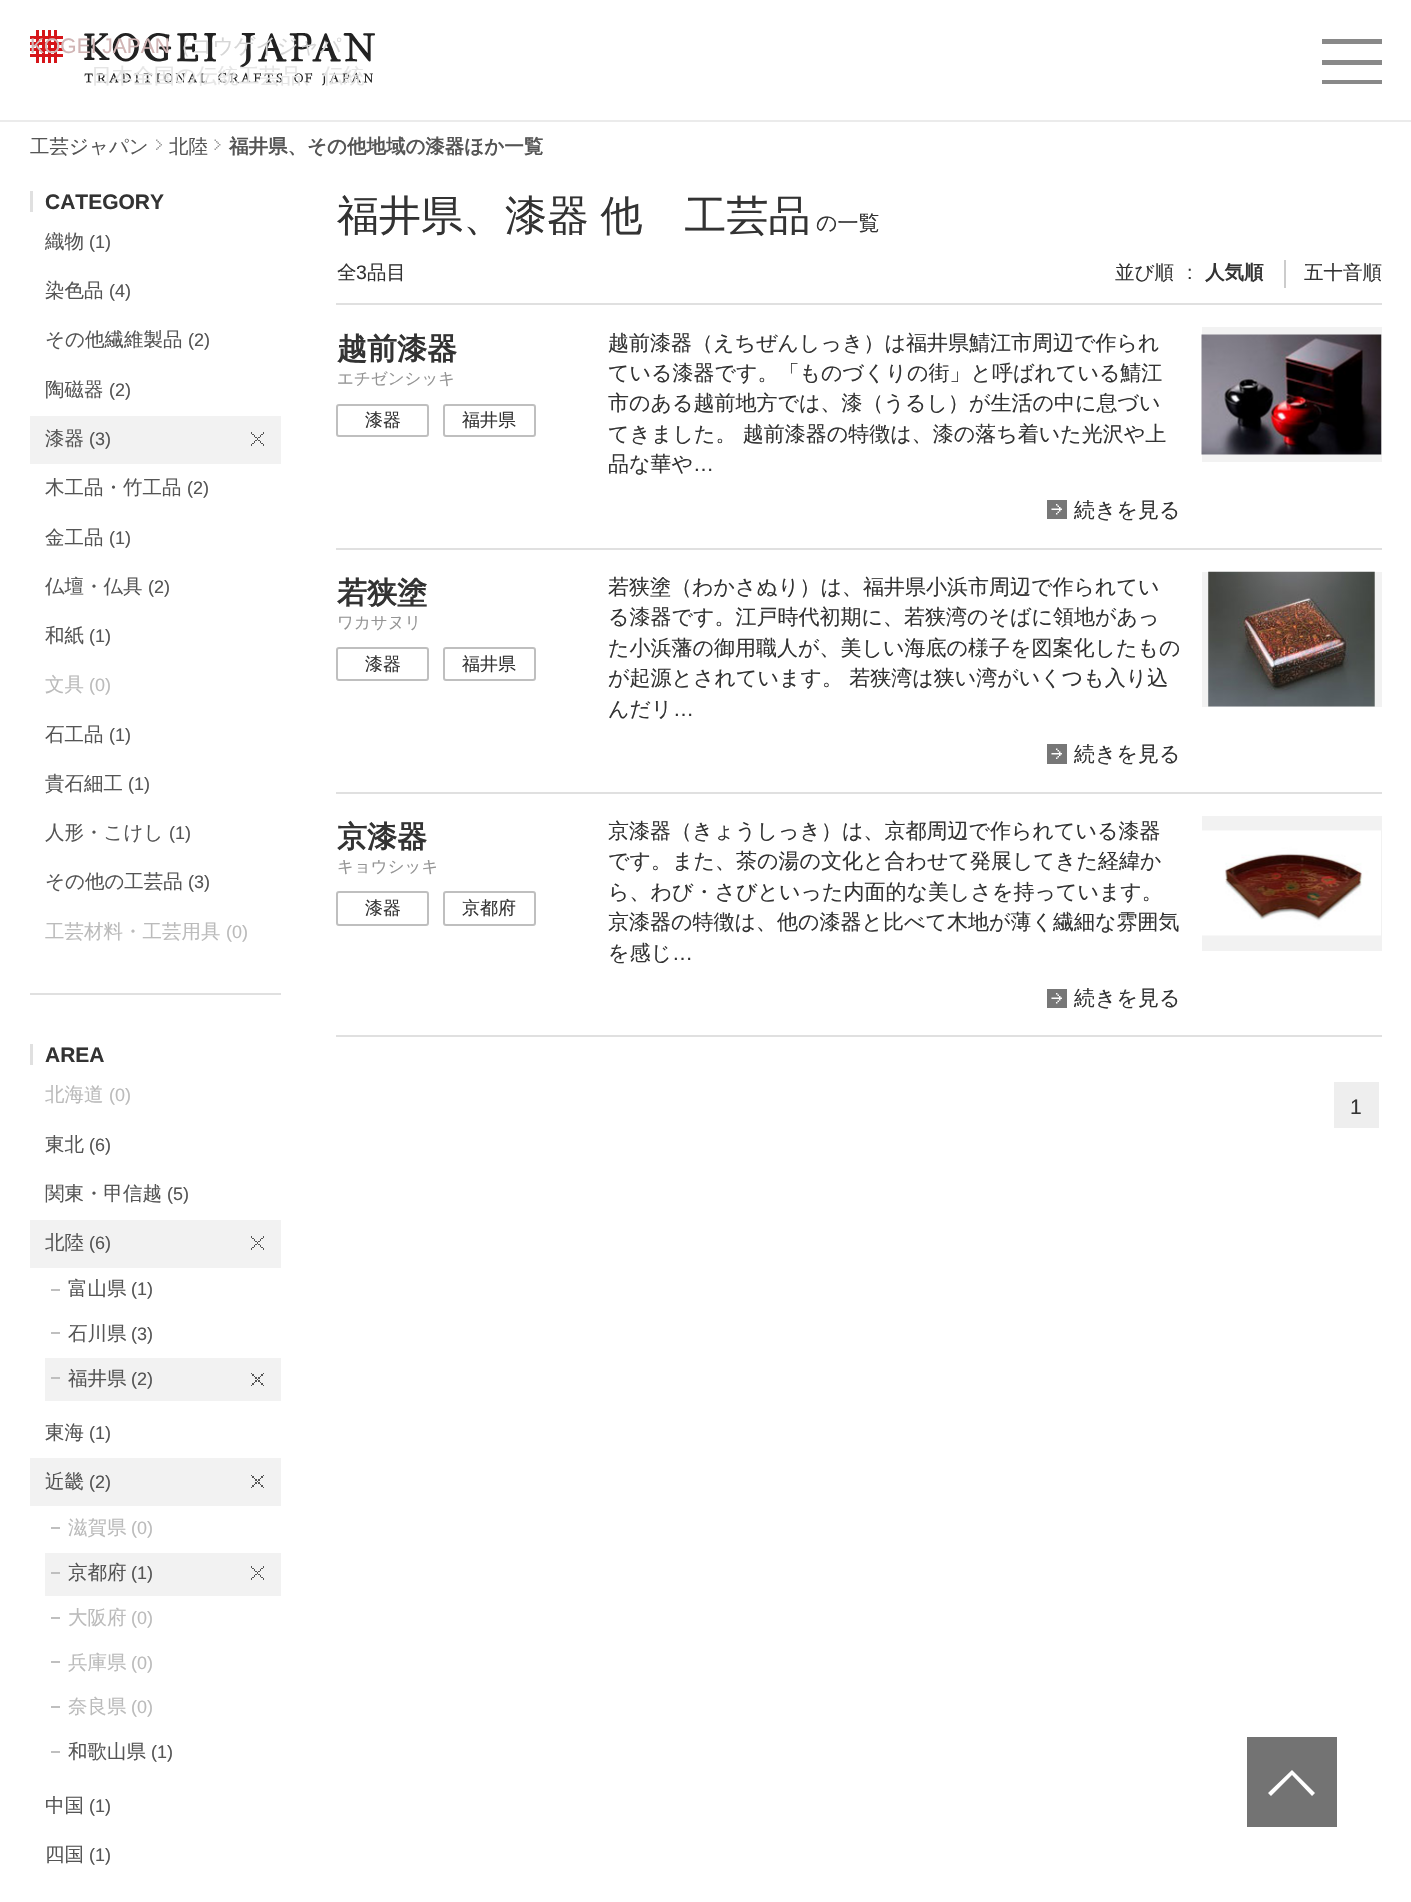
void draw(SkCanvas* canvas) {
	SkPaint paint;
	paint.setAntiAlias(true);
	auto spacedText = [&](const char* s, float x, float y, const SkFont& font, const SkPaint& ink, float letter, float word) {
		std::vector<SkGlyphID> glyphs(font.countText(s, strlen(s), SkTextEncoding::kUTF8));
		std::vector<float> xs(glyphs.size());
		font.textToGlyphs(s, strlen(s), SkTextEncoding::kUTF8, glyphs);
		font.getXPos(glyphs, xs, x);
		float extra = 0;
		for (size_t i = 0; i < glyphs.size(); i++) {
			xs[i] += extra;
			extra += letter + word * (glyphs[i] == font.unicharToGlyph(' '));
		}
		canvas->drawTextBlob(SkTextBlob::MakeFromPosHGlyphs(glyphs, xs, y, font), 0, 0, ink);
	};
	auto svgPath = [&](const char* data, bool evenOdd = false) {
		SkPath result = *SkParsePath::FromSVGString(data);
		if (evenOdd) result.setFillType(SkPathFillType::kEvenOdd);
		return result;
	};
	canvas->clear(0xffffffff);
	paint.setColor(0xffebebeb);
	canvas->drawRect(SkRect::MakeXYWH(0, 120, 1411, 2), paint);
	canvas->drawImageRect(SkImages::DeferredFromEncodedData(SkData::MakeFromFileName("img1.png")), SkRect::MakeXYWH(30, 30, 345, 56), SkSamplingOptions());
	SkFont f1(fontMgr->matchFamilyStyle("Liberation Sans", SkFontStyle::Normal()), 21);
	f1.setSubpixel(true);
	paint.setColor(0xffd1b5b5);
	canvas->drawString("KOGEI JAPAN", 30, 53, f1, paint);
	SkFont f2(fontMgr->matchFamilyStyle("WenQuanYi Zen Hei", SkFontStyle(500, SkFontStyle::kNormal_Width, SkFontStyle::kUpright_Slant)), 21);
	f2.setSubpixel(true);
	paint.setColor(0xffd6d6d6);
	canvas->drawString("（コウゲイジャパ", 170, 53, f2, paint);
	paint.setColor(0xffe5e5e5);
	canvas->drawString("日本全国の伝統工芸品、伝統", 91, 83, f2, paint);
	paint.setColor(0xff898989);
	canvas->drawRect(SkRect::MakeXYWH(1322, 39, 60, 5), paint);
	canvas->drawRect(SkRect::MakeXYWH(1322, 60, 60, 5), paint);
	canvas->drawRect(SkRect::MakeXYWH(1322, 80, 60, 4), paint);
	SkFont f3(fontMgr->matchFamilyStyle("WenQuanYi Zen Hei", SkFontStyle(500, SkFontStyle::kNormal_Width, SkFontStyle::kUpright_Slant)), 19.5);
	f3.setSubpixel(true);
	paint.setColor(0xff555555);
	canvas->drawString("工芸ジャパン", 30, 153, f3, paint);
	canvas->drawImageRect(SkImages::DeferredFromEncodedData(SkData::MakeFromFileName("img2.png")), SkRect::MakeXYWH(156, 139, 6, 11), SkSamplingOptions());
	canvas->drawString("北陸", 169, 153, f3, paint);
	canvas->drawImageRect(SkImages::DeferredFromEncodedData(SkData::MakeFromFileName("img3.png")), SkRect::MakeXYWH(214, 139, 7, 11), SkSamplingOptions());
	SkFont f4(fontMgr->matchFamilyStyle("WenQuanYi Zen Hei", SkFontStyle::Bold()), 19.5);
	f4.setSubpixel(true);
	canvas->drawString("福井県、その他地域の漆器ほか一覧", 229, 153, f4, paint);
	paint.setColor(0xffe0e0e0);
	canvas->drawRect(SkRect::MakeXYWH(30, 191, 3, 21), paint);
	SkFont f5(fontMgr->matchFamilyStyle("Liberation Sans", SkFontStyle::Bold()), 21);
	f5.setSubpixel(true);
	paint.setColor(0xff333333);
	canvas->drawString("CATEGORY", 45, 209, f5, paint);
	paint.setColor(0xff555555);
	canvas->drawString("織物", 45, 248, f3, paint);
	SkFont f6(fontMgr->matchFamilyStyle("Liberation Sans", SkFontStyle::Normal()), 18);
	f6.setSubpixel(true);
	canvas->drawString("(1)", 89, 248, f6, paint);
	canvas->drawString("染色品", 45, 297, f3, paint);
	canvas->drawString("(4)", 109, 297, f6, paint);
	canvas->drawString("その他繊維製品", 45, 346, f3, paint);
	canvas->drawString("(2)", 188, 346, f6, paint);
	canvas->drawString("陶磁器", 45, 396, f3, paint);
	canvas->drawString("(2)", 109, 396, f6, paint);
	paint.setColor(0xfff2f2f2);
	canvas->drawRect(SkRect::MakeXYWH(30, 416, 251, 48), paint);
	paint.setColor(0xff555555);
	canvas->drawString("漆器", 45, 445, f3, paint);
	canvas->drawString("(3)", 89, 445, f6, paint);
	canvas->drawImageRect(SkImages::DeferredFromEncodedData(SkData::MakeFromFileName("img4.png")), SkRect::MakeXYWH(251, 432, 13, 14), SkSamplingOptions());
	canvas->drawString("木工品・竹工品", 45, 494, f3, paint);
	canvas->drawString("(2)", 187, 494, f6, paint);
	canvas->drawString("金工品", 45, 544, f3, paint);
	canvas->drawString("(1)", 109, 544, f6, paint);
	canvas->drawString("仏壇・仏具", 45, 593, f3, paint);
	canvas->drawString("(2)", 148, 593, f6, paint);
	canvas->drawString("和紙", 45, 642, f3, paint);
	canvas->drawString("(1)", 89, 642, f6, paint);
	paint.setColor(0xffbbbbbb);
	canvas->drawString("文具", 45, 691, f3, paint);
	canvas->drawString("(0)", 89, 691, f6, paint);
	paint.setColor(0xff555555);
	canvas->drawString("石工品", 45, 741, f3, paint);
	canvas->drawString("(1)", 109, 741, f6, paint);
	canvas->drawString("貴石細工", 45, 790, f3, paint);
	canvas->drawString("(1)", 128, 790, f6, paint);
	canvas->drawString("人形・こけし", 45, 839, f3, paint);
	canvas->drawString("(1)", 169, 839, f6, paint);
	canvas->drawString("その他の工芸品", 45, 888, f3, paint);
	canvas->drawString("(3)", 188, 888, f6, paint);
	paint.setColor(0xffbbbbbb);
	canvas->drawString("工芸材料・工芸用具", 45, 938, f3, paint);
	canvas->drawString("(0)", 226, 938, f6, paint);
	paint.setColor(0xffe0e0e0);
	canvas->drawRect(SkRect::MakeXYWH(30, 993, 251, 2), paint);
	canvas->drawRect(SkRect::MakeXYWH(30, 1044, 3, 21), paint);
	paint.setColor(0xff333333);
	canvas->drawString("AREA", 45, 1062, f5, paint);
	paint.setColor(0xffbbbbbb);
	canvas->drawString("北海道", 45, 1101, f3, paint);
	canvas->drawString("(0)", 109, 1101, f6, paint);
	paint.setColor(0xff555555);
	canvas->drawString("東北", 45, 1151, f3, paint);
	canvas->drawString("(6)", 89, 1151, f6, paint);
	canvas->drawString("関東・甲信越", 45, 1200, f3, paint);
	canvas->drawString("(5)", 167, 1200, f6, paint);
	paint.setColor(0xfff2f2f2);
	canvas->drawRect(SkRect::MakeXYWH(30, 1220, 251, 48), paint);
	paint.setColor(0xff555555);
	canvas->drawString("北陸", 45, 1249, f3, paint);
	canvas->drawString("(6)", 89, 1249, f6, paint);
	canvas->drawImageRect(SkImages::DeferredFromEncodedData(SkData::MakeFromFileName("img4.png")), SkRect::MakeXYWH(251, 1236, 13, 14), SkSamplingOptions());
	paint.setColor(0xffbfbfbf);
	canvas->drawRect(SkRect::MakeXYWH(51, 1289, 9, 2), paint);
	paint.setColor(0xff555555);
	canvas->drawString("富山県", 68, 1295, f3, paint);
	canvas->drawString("(1)", 131, 1295, f6, paint);
	paint.setColor(0xffbfbfbf);
	canvas->drawRect(SkRect::MakeXYWH(51, 1332, 9, 2), paint);
	paint.setColor(0xff555555);
	canvas->drawString("石川県", 68, 1340, f3, paint);
	canvas->drawString("(3)", 131, 1340, f6, paint);
	paint.setColor(0xfff2f2f2);
	canvas->drawRect(SkRect::MakeXYWH(45, 1358, 236, 43), paint);
	paint.setColor(0xffbfbfbf);
	canvas->drawRect(SkRect::MakeXYWH(51, 1377, 9, 2), paint);
	paint.setColor(0xff555555);
	canvas->drawString("福井県", 68, 1385, f3, paint);
	canvas->drawString("(2)", 131, 1385, f6, paint);
	canvas->drawImageRect(SkImages::DeferredFromEncodedData(SkData::MakeFromFileName("img5.png")), SkRect::MakeXYWH(251, 1373, 13, 13), SkSamplingOptions());
	canvas->drawString("東海", 45, 1439, f3, paint);
	canvas->drawString("(1)", 89, 1439, f6, paint);
	paint.setColor(0xfff2f2f2);
	canvas->drawRect(SkRect::MakeXYWH(30, 1458, 251, 48), paint);
	paint.setColor(0xff555555);
	canvas->drawString("近畿", 45, 1488, f3, paint);
	canvas->drawString("(2)", 89, 1488, f6, paint);
	canvas->drawImageRect(SkImages::DeferredFromEncodedData(SkData::MakeFromFileName("img5.png")), SkRect::MakeXYWH(251, 1475, 13, 13), SkSamplingOptions());
	paint.setColor(0xffbfbfbf);
	canvas->drawRect(SkRect::MakeXYWH(51, 1527, 9, 2), paint);
	paint.setColor(0xffbbbbbb);
	canvas->drawString("滋賀県", 68, 1534, f3, paint);
	canvas->drawString("(0)", 131, 1534, f6, paint);
	paint.setColor(0xfff2f2f2);
	canvas->drawRect(SkRect::MakeXYWH(45, 1553, 236, 43), paint);
	paint.setColor(0xffbfbfbf);
	canvas->drawRect(SkRect::MakeXYWH(51, 1572, 9, 2), paint);
	paint.setColor(0xff555555);
	canvas->drawString("京都府", 68, 1579, f3, paint);
	canvas->drawString("(1)", 131, 1579, f6, paint);
	canvas->drawImageRect(SkImages::DeferredFromEncodedData(SkData::MakeFromFileName("img4.png")), SkRect::MakeXYWH(251, 1566, 13, 14), SkSamplingOptions());
	paint.setColor(0xffbfbfbf);
	canvas->drawRect(SkRect::MakeXYWH(51, 1617, 9, 2), paint);
	paint.setColor(0xffbbbbbb);
	canvas->drawString("大阪府", 68, 1624, f3, paint);
	canvas->drawString("(0)", 131, 1624, f6, paint);
	paint.setColor(0xffbfbfbf);
	canvas->drawRect(SkRect::MakeXYWH(51, 1661, 9, 2), paint);
	paint.setColor(0xffbbbbbb);
	canvas->drawString("兵庫県", 68, 1669, f3, paint);
	canvas->drawString("(0)", 131, 1669, f6, paint);
	paint.setColor(0xffbfbfbf);
	canvas->drawRect(SkRect::MakeXYWH(51, 1706, 9, 2), paint);
	paint.setColor(0xffbbbbbb);
	canvas->drawString("奈良県", 68, 1713, f3, paint);
	canvas->drawString("(0)", 131, 1713, f6, paint);
	paint.setColor(0xffbfbfbf);
	canvas->drawRect(SkRect::MakeXYWH(51, 1751, 9, 2), paint);
	paint.setColor(0xff555555);
	canvas->drawString("和歌山県", 68, 1758, f3, paint);
	canvas->drawString("(1)", 151, 1758, f6, paint);
	canvas->drawString("中国", 45, 1812, f3, paint);
	canvas->drawString("(1)", 89, 1812, f6, paint);
	canvas->drawString("四国", 45, 1861, f3, paint);
	canvas->drawString("(1)", 89, 1861, f6, paint);
	SkFont f7(fontMgr->matchFamilyStyle("WenQuanYi Zen Hei", SkFontStyle(500, SkFontStyle::kNormal_Width, SkFontStyle::kUpright_Slant)), 42);
	f7.setSubpixel(true);
	paint.setColor(0xff333333);
	spacedText("福井県、漆器 他　工芸品", 337, 230, f7, paint, 0, -1);
	canvas->drawString("の一覧", 816, 230, f2, paint);
	canvas->drawString("全", 337, 279, f3, paint);
	SkFont f8(fontMgr->matchFamilyStyle("Liberation Sans", SkFontStyle::Normal()), 19.5);
	f8.setSubpixel(true);
	canvas->drawString("3", 356, 279, f8, paint);
	canvas->drawString("品目", 367, 279, f3, paint);
	canvas->drawString("並び順", 1115, 279, f3, paint);
	canvas->drawString(":", 1187, 279, f8, paint);
	canvas->drawString("人気順", 1205, 279, f4, paint);
	paint.setColor(0xffcccccc);
	canvas->drawRect(SkRect::MakeXYWH(1284, 260, 2, 28), paint);
	paint.setColor(0xff333333);
	canvas->drawString("五十音順", 1304, 279, f3, paint);
	paint.setColor(0xffe0e0e0);
	canvas->drawRect(SkRect::MakeXYWH(336, 303, 1046, 2), paint);
	canvas->drawRect(SkRect::MakeXYWH(336, 548, 1046, 2), paint);
	SkFont f9(fontMgr->matchFamilyStyle("WenQuanYi Zen Hei", SkFontStyle::Bold()), 30);
	f9.setSubpixel(true);
	paint.setColor(0xff333333);
	canvas->drawString("越前漆器", 337, 359, f9, paint);
	SkFont f10(fontMgr->matchFamilyStyle("WenQuanYi Zen Hei", SkFontStyle(500, SkFontStyle::kNormal_Width, SkFontStyle::kUpright_Slant)), 16.5);
	f10.setSubpixel(true);
	paint.setColor(0xff949494);
	canvas->drawString("エチゼンシッキ", 337, 384, f10, paint);
	paint.setStroke(true);
	paint.setStrokeWidth(2);
	paint.setColor(0xffbfbfbf);
	canvas->drawRoundRect(SkRect::MakeXYWH(337, 405, 91, 31), 2, 2, paint);
	SkFont f11(fontMgr->matchFamilyStyle("WenQuanYi Zen Hei", SkFontStyle(500, SkFontStyle::kNormal_Width, SkFontStyle::kUpright_Slant)), 18);
	f11.setSubpixel(true);
	paint.setStroke(false);
	paint.setColor(0xff333333);
	canvas->drawString("漆器", 365, 426, f11, paint);
	paint.setStroke(true);
	paint.setColor(0xffbfbfbf);
	canvas->drawRoundRect(SkRect::MakeXYWH(444, 405, 91, 31), 2, 2, paint);
	paint.setStroke(false);
	paint.setColor(0xff333333);
	canvas->drawString("福井県", 462, 426, f11, paint);
	canvas->drawString("越前漆器（えちぜんしっき）は福井県鯖江市周辺で作られ", 608, 350, f2, paint);
	canvas->drawString("ている漆器です。「ものづくりの街」と呼ばれている鯖江", 608, 380, f2, paint);
	canvas->drawString("市のある越前地方では、漆（うるし）が生活の中に息づい", 608, 410, f2, paint);
	canvas->drawString("てきました。 越前漆器の特徴は、漆の落ち着いた光沢や上", 608, 441, f2, paint);
	canvas->drawString("品な華や", 608, 471, f2, paint);
	canvas->drawString("…", 693, 471, f1, paint);
	canvas->drawImageRect(SkImages::DeferredFromEncodedData(SkData::MakeFromFileName("img6.png")), SkRect::MakeXYWH(1047, 500, 20, 19), SkSamplingOptions());
	canvas->drawString("続きを見る", 1074, 517, f2, paint);
	paint.setColor(0xfff2f2f2);
	canvas->drawRect(SkRect::MakeXYWH(1202, 327, 180, 135), paint);
	canvas->drawImageRect(SkImages::DeferredFromEncodedData(SkData::MakeFromFileName("img7.png")), SkRect::MakeXYWH(1201, 334, 181, 121), SkSamplingOptions());
	paint.setColor(0xffe0e0e0);
	canvas->drawRect(SkRect::MakeXYWH(336, 792, 1046, 2), paint);
	paint.setColor(0xff333333);
	canvas->drawString("若狭塗", 337, 603, f9, paint);
	paint.setColor(0xff949494);
	canvas->drawString("ワカサヌリ", 337, 628, f10, paint);
	paint.setStroke(true);
	paint.setColor(0xffbfbfbf);
	canvas->drawRoundRect(SkRect::MakeXYWH(337, 648, 91, 32), 2, 2, paint);
	paint.setStroke(false);
	paint.setColor(0xff333333);
	canvas->drawString("漆器", 365, 670, f11, paint);
	paint.setStroke(true);
	paint.setColor(0xffbfbfbf);
	canvas->drawRoundRect(SkRect::MakeXYWH(444, 648, 91, 32), 2, 2, paint);
	paint.setStroke(false);
	paint.setColor(0xff333333);
	canvas->drawString("福井県", 462, 670, f11, paint);
	canvas->drawString("若狭塗（わかさぬり）は、福井県小浜市周辺で作られてい", 608, 594, f2, paint);
	canvas->drawString("る漆器です。江戸時代初期に、若狭湾のそばに領地があっ", 608, 624, f2, paint);
	canvas->drawString("た小浜藩の御用職人が、美しい海底の様子を図案化したもの", 608, 655, f2, paint);
	canvas->drawString("が起源とされています。 若狭湾は狭い湾がいくつも入り込", 608, 685, f2, paint);
	canvas->drawString("んだリ", 608, 716, f2, paint);
	canvas->drawString("…", 673, 716, f1, paint);
	canvas->drawImageRect(SkImages::DeferredFromEncodedData(SkData::MakeFromFileName("img8.png")), SkRect::MakeXYWH(1047, 744, 20, 20), SkSamplingOptions());
	canvas->drawString("続きを見る", 1074, 761, f2, paint);
	paint.setColor(0xfff2f2f2);
	canvas->drawRect(SkRect::MakeXYWH(1202, 572, 180, 135), paint);
	canvas->drawImageRect(SkImages::DeferredFromEncodedData(SkData::MakeFromFileName("img9.png")), SkRect::MakeXYWH(1208, 571, 167, 136), SkSamplingOptions());
	paint.setColor(0xffe0e0e0);
	canvas->drawRect(SkRect::MakeXYWH(336, 1035, 1046, 2), paint);
	paint.setColor(0xff333333);
	canvas->drawString("京漆器", 337, 847, f9, paint);
	paint.setColor(0xff949494);
	canvas->drawString("キョウシッキ", 337, 872, f10, paint);
	paint.setStroke(true);
	paint.setColor(0xffbfbfbf);
	canvas->drawRoundRect(SkRect::MakeXYWH(337, 892, 91, 33), 2, 2, paint);
	paint.setStroke(false);
	paint.setColor(0xff333333);
	canvas->drawString("漆器", 365, 914, f11, paint);
	paint.setStroke(true);
	paint.setColor(0xffbfbfbf);
	canvas->drawRoundRect(SkRect::MakeXYWH(444, 892, 91, 33), 2, 2, paint);
	paint.setStroke(false);
	paint.setColor(0xff333333);
	canvas->drawString("京都府", 462, 914, f11, paint);
	canvas->drawString("京漆器（きょうしっき）は、京都周辺で作られている漆器", 608, 838, f2, paint);
	canvas->drawString("です。また、茶の湯の文化と合わせて発展してきた経緯か", 608, 868, f2, paint);
	canvas->drawString("ら、わび・さびといった内面的な美しさを持っています。", 608, 899, f2, paint);
	canvas->drawString("京漆器の特徴は、他の漆器と比べて木地が薄く繊細な雰囲気", 608, 929, f2, paint);
	canvas->drawString("を感じ", 608, 960, f2, paint);
	canvas->drawString("…", 672, 960, f1, paint);
	canvas->drawImageRect(SkImages::DeferredFromEncodedData(SkData::MakeFromFileName("img6.png")), SkRect::MakeXYWH(1047, 989, 20, 19), SkSamplingOptions());
	canvas->drawString("続きを見る", 1074, 1005, f2, paint);
	paint.setColor(0xfff2f2f2);
	canvas->drawRect(SkRect::MakeXYWH(1202, 816, 180, 135), paint);
	canvas->drawImageRect(SkImages::DeferredFromEncodedData(SkData::MakeFromFileName("img10.png")), SkRect::MakeXYWH(1202, 830, 179, 106), SkSamplingOptions());
	paint.setColor(0xffeeeeee);
	canvas->drawRect(SkRect::MakeXYWH(1334, 1082, 45, 46), paint);
	paint.setColor(0xff333333);
	canvas->drawString("1", 1350, 1114, f1, paint);
	paint.setColor(0xff737373);
	canvas->drawRect(SkRect::MakeXYWH(1247, 1737, 90, 90), paint);
	paint.setColor(0xffffffff);
	canvas->drawPath(svgPath("M1312 1796L1292 1775L1271 1796L1268 1793L1292 1770L1315 1793Z"), paint);
}
